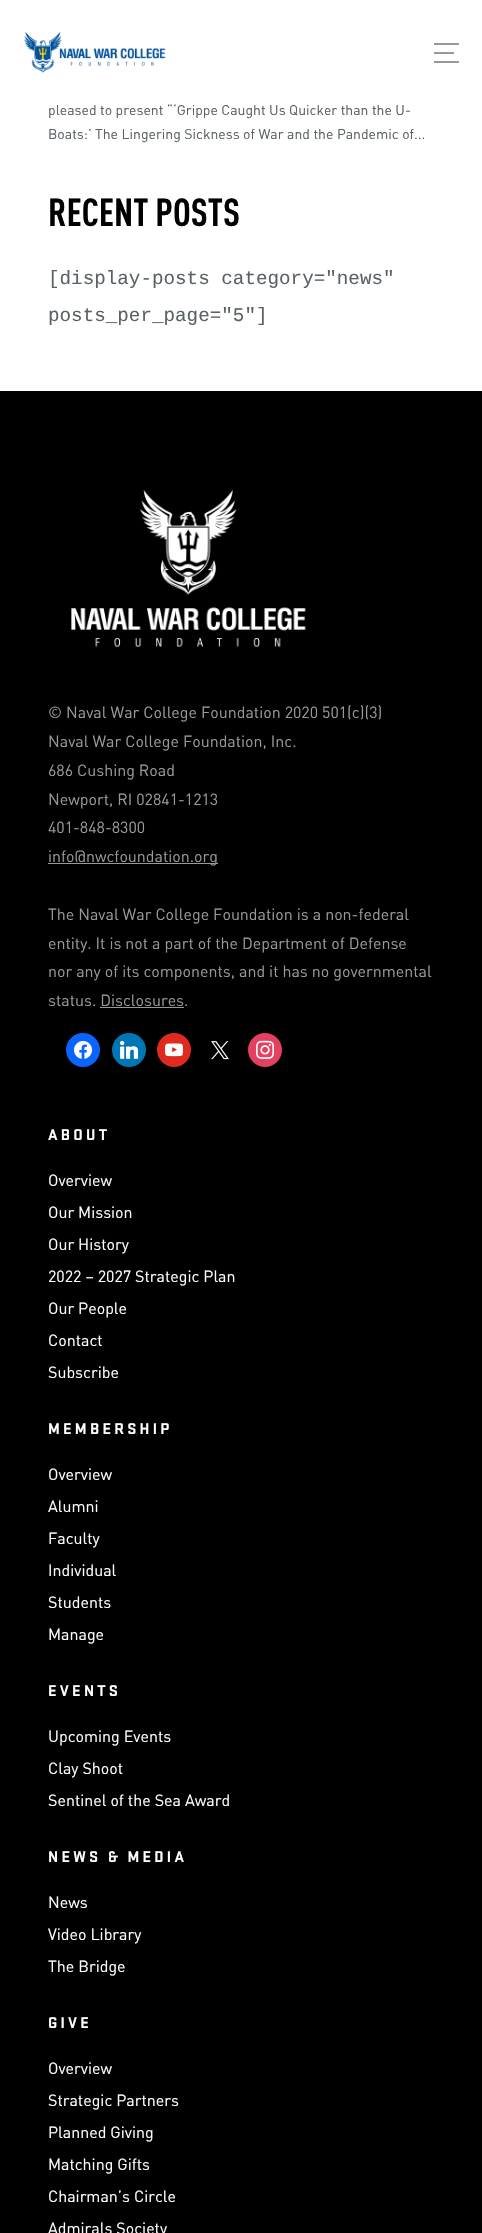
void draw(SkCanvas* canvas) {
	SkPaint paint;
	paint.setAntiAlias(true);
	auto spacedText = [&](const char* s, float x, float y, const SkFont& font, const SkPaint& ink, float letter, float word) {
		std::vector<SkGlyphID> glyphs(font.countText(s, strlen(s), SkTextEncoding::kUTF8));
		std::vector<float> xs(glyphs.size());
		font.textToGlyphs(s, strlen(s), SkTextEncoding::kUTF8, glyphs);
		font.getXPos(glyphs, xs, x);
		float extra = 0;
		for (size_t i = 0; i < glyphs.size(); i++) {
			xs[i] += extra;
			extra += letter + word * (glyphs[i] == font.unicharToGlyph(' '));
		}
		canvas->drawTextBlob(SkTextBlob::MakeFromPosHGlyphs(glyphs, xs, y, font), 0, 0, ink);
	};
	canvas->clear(0xffffffff);
	canvas->drawImageRect(SkImages::DeferredFromEncodedData(SkData::MakeFromFileName("img1.png")), SkRect::MakeXYWH(24, 31, 142, 42), SkSamplingOptions());
	paint.setColor(0xff999999);
	canvas->drawRect(SkRect::MakeXYWH(434, 43, 25, 2), paint);
	canvas->drawRect(SkRect::MakeXYWH(434, 52, 20, 2), paint);
	canvas->drawRect(SkRect::MakeXYWH(434, 61, 25, 2), paint);
	SkFont f1(fontMgr->matchFamilyStyle("DIN", SkFontStyle::Normal()), 14);
	f1.setSubpixel(true);
	paint.setColor(0xff5a6266);
	canvas->drawString("pleased to present “‘Grippe Caught Us Quicker than the U-", 48, 115, f1, paint);
	canvas->drawString("Boats:’ The Lingering Sickness of War and the Pandemic of...", 48, 139, f1, paint);
	SkFont f2(fontMgr->matchFamilyStyle("DIN", SkFontStyle::Bold()), 38.5);
	f2.setSubpixel(true);
	paint.setColor(0xff000000);
	canvas->drawString("RECENT POSTS", 48, 226, f2, paint);
	SkFont f3(fontMgr->matchFamilyStyle("Liberation Mono", SkFontStyle::Normal()), 19.25);
	f3.setSubpixel(true);
	paint.setColor(0xff5a6266);
	canvas->drawString("[display-posts category=\"news\"", 48, 284, f3, paint);
	canvas->drawString("posts_per_page=\"5\"]", 48, 321, f3, paint);
	paint.setColor(0xff000000);
	canvas->drawRect(SkRect::MakeXYWH(0, 391, 482, 1842), paint);
	canvas->drawImageRect(SkImages::DeferredFromEncodedData(SkData::MakeFromFileName("img2.png")), SkRect::MakeXYWH(71, 489, 235, 158), SkSamplingOptions());
	SkFont f4(fontMgr->matchFamilyStyle("DIN", SkFontStyle::Normal()), 16);
	f4.setSubpixel(true);
	paint.setColor(0xff999999);
	canvas->drawString("© Naval War College Foundation 2020 501(c)(3)", 48, 718, f4, paint);
	canvas->drawString("Naval War College Foundation, Inc.", 48, 747, f4, paint);
	canvas->drawString("686 Cushing Road", 48, 776, f4, paint);
	canvas->drawString("Newport, RI 02841-1213", 48, 805, f4, paint);
	canvas->drawString("401-848-8300", 48, 833, f4, paint);
	canvas->drawRect(SkRect::MakeXYWH(48, 863, 170, 1), paint);
	canvas->drawString("info@nwcfoundation.org", 48, 862, f4, paint);
	canvas->drawString("The Naval War College Foundation is a non-federal", 48, 920, f4, paint);
	canvas->drawString("entity. It is not a part of the Department of Defense", 48, 949, f4, paint);
	canvas->drawString("nor any of its components, and it has no governmental", 48, 977, f4, paint);
	canvas->drawString("status. Disclosures.", 48, 1006, f4, paint);
	canvas->drawRect(SkRect::MakeXYWH(100, 1007, 84, 1), paint);
	paint.setColor(0xff0866ff);
	canvas->drawCircle(83, 1050, 17, paint);
	canvas->drawImageRect(SkImages::DeferredFromEncodedData(SkData::MakeFromFileName("img3.png")), SkRect::MakeXYWH(74, 1041, 18, 18), SkSamplingOptions());
	paint.setColor(0xff0077b5);
	canvas->drawCircle(129, 1050, 17, paint);
	canvas->drawImageRect(SkImages::DeferredFromEncodedData(SkData::MakeFromFileName("img4.png")), SkRect::MakeXYWH(120, 1040, 19, 19), SkSamplingOptions());
	paint.setColor(0xffe02a20);
	canvas->drawCircle(174, 1050, 17, paint);
	canvas->drawImageRect(SkImages::DeferredFromEncodedData(SkData::MakeFromFileName("img5.png")), SkRect::MakeXYWH(165, 1043, 19, 14), SkSamplingOptions());
	canvas->drawImageRect(SkImages::DeferredFromEncodedData(SkData::MakeFromFileName("img6.png")), SkRect::MakeXYWH(211, 1041, 18, 19), SkSamplingOptions());
	paint.setColor(0xffe4405f);
	canvas->drawCircle(265, 1050, 17, paint);
	canvas->drawImageRect(SkImages::DeferredFromEncodedData(SkData::MakeFromFileName("img7.png")), SkRect::MakeXYWH(256, 1040, 18, 19), SkSamplingOptions());
	SkFont f5(fontMgr->matchFamilyStyle("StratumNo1", SkFontStyle::Bold()), 16);
	f5.setSubpixel(true);
	paint.setColor(0xffffffff);
	spacedText("ABOUT", 48, 1140, f5, paint, 3.25, 0);
	canvas->drawString("Overview", 48, 1186, f4, paint);
	canvas->drawString("Our Mission", 48, 1218, f4, paint);
	canvas->drawString("Our History", 48, 1250, f4, paint);
	canvas->drawString("2022 – 2027 Strategic Plan", 48, 1282, f4, paint);
	canvas->drawString("Our People", 48, 1314, f4, paint);
	canvas->drawString("Contact", 48, 1346, f4, paint);
	canvas->drawString("Subscribe", 48, 1378, f4, paint);
	spacedText("MEMBERSHIP", 48, 1434, f5, paint, 3.25, 0);
	canvas->drawString("Overview", 48, 1480, f4, paint);
	canvas->drawString("Alumni", 48, 1512, f4, paint);
	canvas->drawString("Faculty", 48, 1544, f4, paint);
	canvas->drawString("Individual", 48, 1576, f4, paint);
	canvas->drawString("Students", 48, 1608, f4, paint);
	canvas->drawString("Manage", 48, 1640, f4, paint);
	spacedText("EVENTS", 48, 1696, f5, paint, 3.25, 0);
	canvas->drawString("Upcoming Events", 48, 1742, f4, paint);
	canvas->drawString("Clay Shoot", 48, 1774, f4, paint);
	canvas->drawString("Sentinel of the Sea Award", 48, 1806, f4, paint);
	spacedText("NEWS & MEDIA", 48, 1862, f5, paint, 3.25, 0);
	canvas->drawString("News", 48, 1908, f4, paint);
	canvas->drawString("Video Library", 48, 1940, f4, paint);
	canvas->drawString("The Bridge", 48, 1972, f4, paint);
	spacedText("GIVE", 48, 2028, f5, paint, 3.25, 0);
	canvas->drawString("Overview", 48, 2074, f4, paint);
	canvas->drawString("Strategic Partners", 48, 2106, f4, paint);
	canvas->drawString("Planned Giving", 48, 2138, f4, paint);
	canvas->drawString("Matching Gifts", 48, 2170, f4, paint);
	canvas->drawString("Chairman’s Circle", 48, 2202, f4, paint);
	canvas->drawString("Admirals Society", 48, 2234, f4, paint);
}
